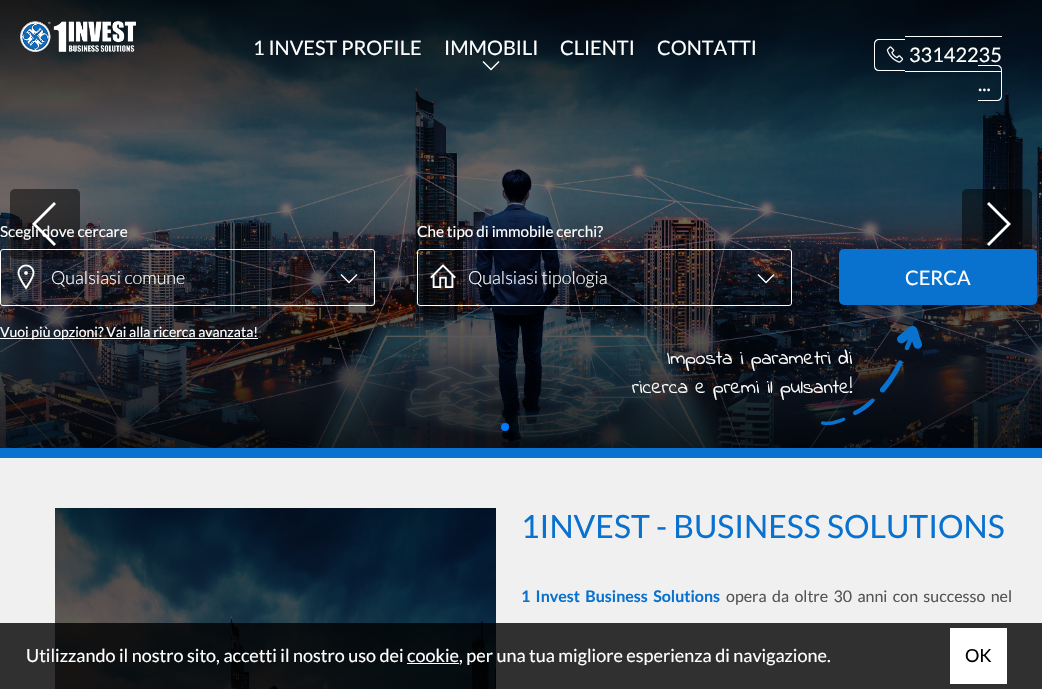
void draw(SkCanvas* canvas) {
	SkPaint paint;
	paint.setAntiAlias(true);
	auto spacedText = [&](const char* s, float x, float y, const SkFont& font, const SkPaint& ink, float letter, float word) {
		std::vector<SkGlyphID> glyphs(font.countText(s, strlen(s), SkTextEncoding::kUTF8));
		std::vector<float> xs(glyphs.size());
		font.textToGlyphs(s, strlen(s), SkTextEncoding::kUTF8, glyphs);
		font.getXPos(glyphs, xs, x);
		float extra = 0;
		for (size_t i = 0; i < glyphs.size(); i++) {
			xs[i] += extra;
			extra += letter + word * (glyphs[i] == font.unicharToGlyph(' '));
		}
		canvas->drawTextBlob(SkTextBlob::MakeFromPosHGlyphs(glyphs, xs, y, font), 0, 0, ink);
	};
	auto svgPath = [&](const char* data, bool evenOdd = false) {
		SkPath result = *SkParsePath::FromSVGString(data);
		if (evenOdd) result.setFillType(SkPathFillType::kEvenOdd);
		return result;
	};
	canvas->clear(0xff0971ce);
	paint.setColor(0xff000000);
	canvas->drawRect(SkRect::MakeXYWH(0, 0, 1042, 448), paint);
	canvas->drawImageRect(SkImages::DeferredFromEncodedData(SkData::MakeFromFileName("img1.png")), SkRect::MakeXYWH(0, 0, 1042, 448), SkSamplingOptions());
	{
		const SkColor colors[] = {0x8c000000, 0x00000000};
		const float stops[] = {0, 1};
		const SkPoint ends[] = {{521, 0}, {521, 350}};
		paint.setShader(SkGradientShader::MakeLinear(ends, colors, stops, 2, SkTileMode::kClamp));
		paint.setAlpha(255);
	}
	canvas->drawRect(SkRect::MakeXYWH(0, 0, 1042, 336), paint);
	{
		const SkColor colors[] = {0x00000000, 0xbf000000};
		const float stops[] = {0, 1};
		const SkPoint ends[] = {{521, 198}, {521, 448}};
		paint.setShader(SkGradientShader::MakeLinear(ends, colors, stops, 2, SkTileMode::kClamp));
		paint.setAlpha(255);
	}
	canvas->drawRect(SkRect::MakeXYWH(0, 205, 1042, 243), paint);
	paint.setShader(nullptr);
	paint.setColor(0x80000000);
	canvas->drawRoundRect(SkRect::MakeXYWH(10, 189, 70, 70), 5, 5, paint);
	paint.setColor(0xffffffff);
	canvas->drawPath(svgPath("M32 224L54 202L56 204L36 224L56 244L54 246Z"), paint);
	paint.setColor(0x80000000);
	canvas->drawRoundRect(SkRect::MakeXYWH(962, 189, 70, 70), 5, 5, paint);
	paint.setColor(0xffffffff);
	canvas->drawPath(svgPath("M1011 224L989 246L987 244L1007 224L987 204L989 202Z"), paint);
	paint.setColor(0xff007aff);
	canvas->drawCircle(505, 427, 4, paint);
	paint.setColor(0x33000000);
	canvas->drawCircle(521, 427, 4, paint);
	canvas->drawCircle(537, 427, 4, paint);
	{
		const SkColor colors[] = {0x99000000, 0x00000000};
		const float stops[] = {0, 1};
		const SkPoint ends[] = {{521, 0}, {521, 137}};
		paint.setShader(SkGradientShader::MakeLinear(ends, colors, stops, 2, SkTileMode::kClamp));
		paint.setAlpha(255);
	}
	canvas->drawRect(SkRect::MakeXYWH(0, 0, 1042, 130), paint);
	canvas->drawImageRect(SkImages::DeferredFromEncodedData(SkData::MakeFromFileName("img2.png")), SkRect::MakeXYWH(20, 21, 116, 31), SkSamplingOptions());
	SkFont f1(fontMgr->matchFamilyStyle("Lato", SkFontStyle::Normal()), 20);
	f1.setSubpixel(true);
	paint.setShader(nullptr);
	paint.setColor(0xffffffff);
	canvas->drawString("1 INVEST PROFILE", 253, 55, f1, paint);
	canvas->drawString("IMMOBILI", 444, 55, f1, paint);
	canvas->drawPath(svgPath("M483.5 61L491 68.5L498.5 61L499.5 62L491 70.5L482.5 62Z"), paint);
	canvas->drawString("CLIENTI", 560, 55, f1, paint);
	canvas->drawString("CONTATTI", 657, 55, f1, paint);
	canvas->drawPath(svgPath("M879 39H905V71H879C876 71 874 69 874 66V44C874 41 876 39 879 39ZM879 40H905V70H879C877 70 875 68 875 66V44C875 42 877 40 879 40Z", true), paint);
	canvas->drawRect(SkRect::MakeXYWH(905, 36, 97, 1), paint);
	canvas->drawRect(SkRect::MakeXYWH(905, 71, 97, 1), paint);
	canvas->drawPath(svgPath("M978 65H997C1000 65 1002 67 1002 70V96C1002 99 1000 101 997 101H978ZM978 66H997C999 66 1001 68 1001 70V96C1001 98 999 100 997 100H978Z", true), paint);
	canvas->drawImageRect(SkImages::DeferredFromEncodedData(SkData::MakeFromFileName("img3.png")), SkRect::MakeXYWH(886, 46, 18, 17), SkSamplingOptions());
	canvas->drawString("33142235", 909, 62, f1, paint);
	canvas->drawString("...", 978, 91, f1, paint);
	SkFont f2(fontMgr->matchFamilyStyle("Lato", SkFontStyle::Normal()), 15.25);
	f2.setSubpixel(true);
	canvas->drawString("Scegli dove cercare", 0, 237, f2, paint);
	paint.setStroke(true);
	paint.setStrokeWidth(1);
	canvas->drawRoundRect(SkRect::MakeXYWH(0.5, 249.5, 374, 56), 2.5, 2.5, paint);
	canvas->drawImageRect(SkImages::DeferredFromEncodedData(SkData::MakeFromFileName("img4.png")), SkRect::MakeXYWH(17, 264, 18, 26), SkSamplingOptions());
	SkFont f3(fontMgr->matchFamilyStyle("Lato", SkFontStyle(300, SkFontStyle::kNormal_Width, SkFontStyle::kUpright_Slant)), 18);
	f3.setSubpixel(true);
	paint.setStroke(false);
	canvas->drawString("Qualsiasi comune", 51, 284, f3, paint);
	canvas->drawPath(svgPath("M341.5 274L349 281.5L356.5 274L357.5 275L349 283.5L340.5 275Z"), paint);
	canvas->drawString("Che tipo di immobile cerchi?", 417, 237, f2, paint);
	paint.setStroke(true);
	canvas->drawRoundRect(SkRect::MakeXYWH(417.5, 249.5, 374, 56), 2.5, 2.5, paint);
	canvas->drawImageRect(SkImages::DeferredFromEncodedData(SkData::MakeFromFileName("img5.png")), SkRect::MakeXYWH(430, 264, 26, 24), SkSamplingOptions());
	paint.setStroke(false);
	canvas->drawString("Qualsiasi tipologia", 468, 284, f3, paint);
	canvas->drawPath(svgPath("M758.5 274L766 281.5L773.5 274L774.5 275L766 283.5L757.5 275Z"), paint);
	paint.setColor(0xff0971ce);
	canvas->drawRoundRect(SkRect::MakeXYWH(839, 249, 198, 56), 5, 5, paint);
	paint.setColor(0xffffffff);
	canvas->drawString("CERCA", 905, 285, f1, paint);
	canvas->drawRect(SkRect::MakeXYWH(0, 338, 258, 1), paint);
	SkFont f4(fontMgr->matchFamilyStyle("Lato", SkFontStyle::Normal()), 14);
	f4.setSubpixel(true);
	canvas->drawString("Vuoi più opzioni? Vai alla ricerca avanzata!", 0, 337, f4, paint);
	SkFont f5(fontMgr->matchFamilyStyle("Indie Flower", SkFontStyle::Normal()), 20);
	f5.setSubpixel(true);
	canvas->drawString("Imposta i parametri di", 667, 364, f5, paint);
	canvas->drawString("ricerca e premi il pulsante!", 632, 393, f5, paint);
	canvas->drawImageRect(SkImages::DeferredFromEncodedData(SkData::MakeFromFileName("img6.png")), SkRect::MakeXYWH(821, 326, 101, 99), SkSamplingOptions());
	paint.setColor(0xfff0f0f0);
	canvas->drawRect(SkRect::MakeXYWH(0, 458, 1042, 231), paint);
	paint.setColor(0xff000000);
	canvas->drawRect(SkRect::MakeXYWH(55, 508, 441, 181), paint);
	canvas->drawImageRect(SkImages::DeferredFromEncodedData(SkData::MakeFromFileName("img7.png")), SkRect::MakeXYWH(55, 508, 441, 181), SkSamplingOptions());
	{
		const SkColor colors[] = {0x8c000000, 0x00000000};
		const float stops[] = {0, 1};
		const SkPoint ends[] = {{276, 508}, {276, 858}};
		paint.setShader(SkGradientShader::MakeLinear(ends, colors, stops, 2, SkTileMode::kClamp));
		paint.setAlpha(255);
	}
	canvas->drawRect(SkRect::MakeXYWH(55, 508, 441, 181), paint);
	SkFont f6(fontMgr->matchFamilyStyle("Lato", SkFontStyle::Normal()), 32);
	f6.setSubpixel(true);
	paint.setShader(nullptr);
	paint.setColor(0xff0971ce);
	canvas->drawString("1INVEST - BUSINESS SOLUTIONS", 521, 538, f6, paint);
	SkFont f7(fontMgr->matchFamilyStyle("Lato", SkFontStyle::Bold()), 16);
	f7.setSubpixel(true);
	spacedText("1 Invest Business Solutions", 521, 602, f7, paint, 0, 2.25);
	SkFont f8(fontMgr->matchFamilyStyle("Lato", SkFontStyle::Normal()), 16);
	f8.setSubpixel(true);
	paint.setColor(0xff555555);
	spacedText("opera da oltre 30 anni con successo nel", 726, 602, f8, paint, 0, 2.25);
	paint.setColor(0xcc000000);
	canvas->drawRect(SkRect::MakeXYWH(0, 623, 1042, 66), paint);
	SkFont f9(fontMgr->matchFamilyStyle("Lato", SkFontStyle::Normal()), 18);
	f9.setSubpixel(true);
	paint.setColor(0xffffffff);
	canvas->drawString("Utilizzando il nostro sito, accetti il nostro uso dei cookie, per una tua migliore esperienza di navigazione.", 26, 662, f9, paint);
	canvas->drawRect(SkRect::MakeXYWH(950, 628, 57, 56), paint);
	paint.setColor(0xff000000);
	canvas->drawString("OK", 965, 662, f9, paint);
	paint.setColor(0xffffffff);
	canvas->drawRect(SkRect::MakeXYWH(407, 663, 52, 1), paint);
}
